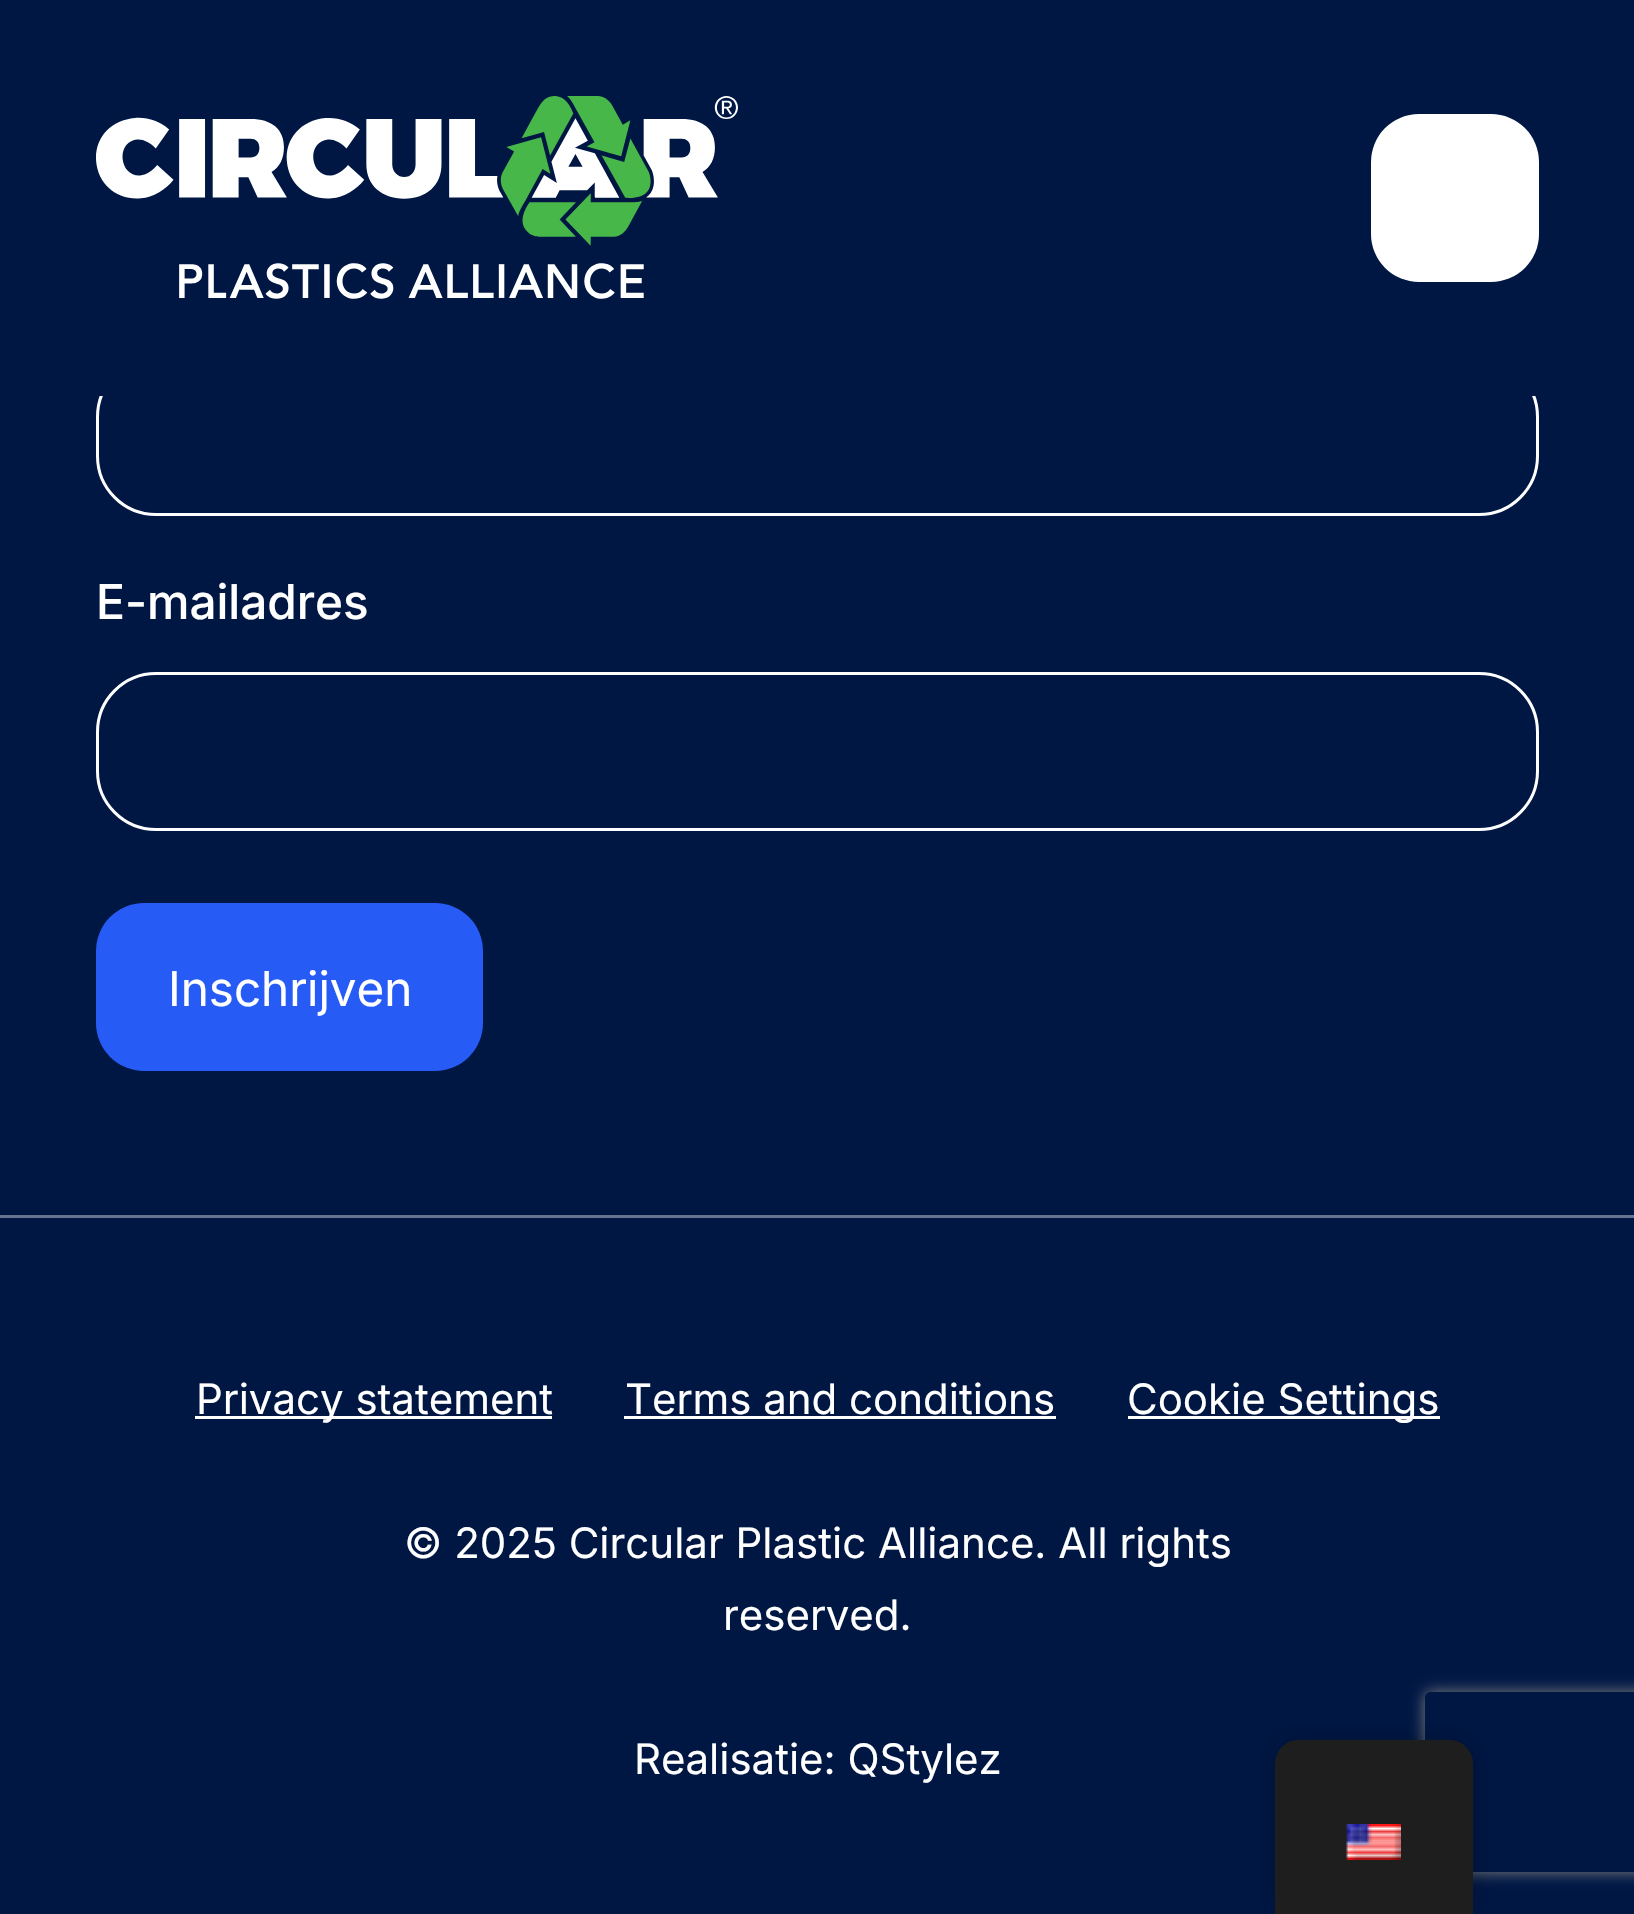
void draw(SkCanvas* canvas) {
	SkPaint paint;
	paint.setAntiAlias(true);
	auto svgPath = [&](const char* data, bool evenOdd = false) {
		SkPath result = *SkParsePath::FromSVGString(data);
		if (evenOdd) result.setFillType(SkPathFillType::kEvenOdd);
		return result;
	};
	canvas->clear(0xff001744);
	paint.setStroke(true);
	paint.setStrokeWidth(3);
	paint.setColor(0xffffffff);
	canvas->drawRoundRect(SkRect::MakeXYWH(97.5, 358.5, 1440, 156), 58.5, 58.5, paint);
	paint.setStroke(false);
	paint.setColor(0xff001744);
	canvas->drawRect(SkRect::MakeXYWH(99, 357, 1437, 39), paint);
	canvas->drawImageRect(SkImages::DeferredFromEncodedData(SkData::MakeFromFileName("img1.png")), SkRect::MakeXYWH(96, 96, 642, 203), SkSamplingOptions());
	paint.setColor(0xffffffff);
	canvas->drawRoundRect(SkRect::MakeXYWH(1371, 114, 168, 168), 48, 48, paint);
	paint.setColor(0xff66748f);
	canvas->drawRect(SkRect::MakeXYWH(0, 1215, 1634, 3), paint);
	SkFont f1(fontMgr->matchFamilyStyle("Inter", SkFontStyle(500, SkFontStyle::kNormal_Width, SkFontStyle::kUpright_Slant)), 48);
	f1.setSubpixel(true);
	paint.setColor(0xffffffff);
	canvas->drawString("E-mailadres", 96, 619, f1, paint);
	paint.setStroke(true);
	canvas->drawRoundRect(SkRect::MakeXYWH(97.5, 673.5, 1440, 156), 58.5, 58.5, paint);
	canvas->save();
	canvas->clipPath(svgPath("M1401 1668H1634V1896H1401ZM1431 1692H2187C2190.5 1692 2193 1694.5 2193 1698V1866C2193 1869.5 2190.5 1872 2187 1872H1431C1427.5 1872 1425 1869.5 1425 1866V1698C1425 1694.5 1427.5 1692 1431 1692Z", true), true);
	paint.setStroke(false);
	paint.setColor(0xff808080);
	paint.setMaskFilter(SkMaskFilter::MakeBlur(kNormal_SkBlurStyle, 7.5));
	canvas->drawRoundRect(SkRect::MakeXYWH(1425, 1692, 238, 180), 6, 6, paint);
	paint.setMaskFilter(nullptr);
	canvas->restore();
	paint.setColor(0xff265bf6);
	canvas->drawRoundRect(SkRect::MakeXYWH(96, 903, 387, 168), 48, 48, paint);
	SkFont f2(fontMgr->matchFamilyStyle("Inter", SkFontStyle::Normal()), 48);
	f2.setSubpixel(true);
	paint.setColor(0xffffffff);
	canvas->drawString("Inschrijven", 168, 1006, f2, paint);
	canvas->drawRect(SkRect::MakeXYWH(195, 1416, 357, 3), paint);
	SkFont f3(fontMgr->matchFamilyStyle("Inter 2", SkFontStyle::Normal()), 42);
	f3.setSubpixel(true);
	canvas->drawString("Privacy statement", 196, 1414, f3, paint);
	canvas->drawString("Terms and conditions", 625, 1414, f3, paint);
	canvas->drawRect(SkRect::MakeXYWH(624, 1416, 432, 3), paint);
	canvas->drawRect(SkRect::MakeXYWH(1128, 1416, 312, 3), paint);
	canvas->drawString("Cookie Settings", 1127, 1414, f3, paint);
	canvas->drawString("© 2025 Circular Plastic Alliance. All rights", 404, 1558, f3, paint);
	canvas->drawString("reserved.", 723, 1630, f3, paint);
	canvas->drawString("Realisatie: QStylez", 634, 1774, f3, paint);
	paint.setColor(0x40000000);
	paint.setMaskFilter(SkMaskFilter::MakeBlur(kNormal_SkBlurStyle, 12));
	canvas->drawRoundRect(SkRect::MakeXYWH(1275, 1740, 198, 174), 24, 24, paint);
	paint.setMaskFilter(nullptr);
	paint.setColor(0xff1e1e1e);
	canvas->drawPath(svgPath("M1299 1740H1449C1462.5 1740 1473 1750.5 1473 1764V1914H1275V1764C1275 1750.5 1285.5 1740 1299 1740Z"), paint);
	canvas->drawImageRect(SkImages::DeferredFromEncodedData(SkData::MakeFromFileName("img2.png")), SkRect::MakeXYWH(1346, 1824, 55, 36), SkSamplingOptions());
}
